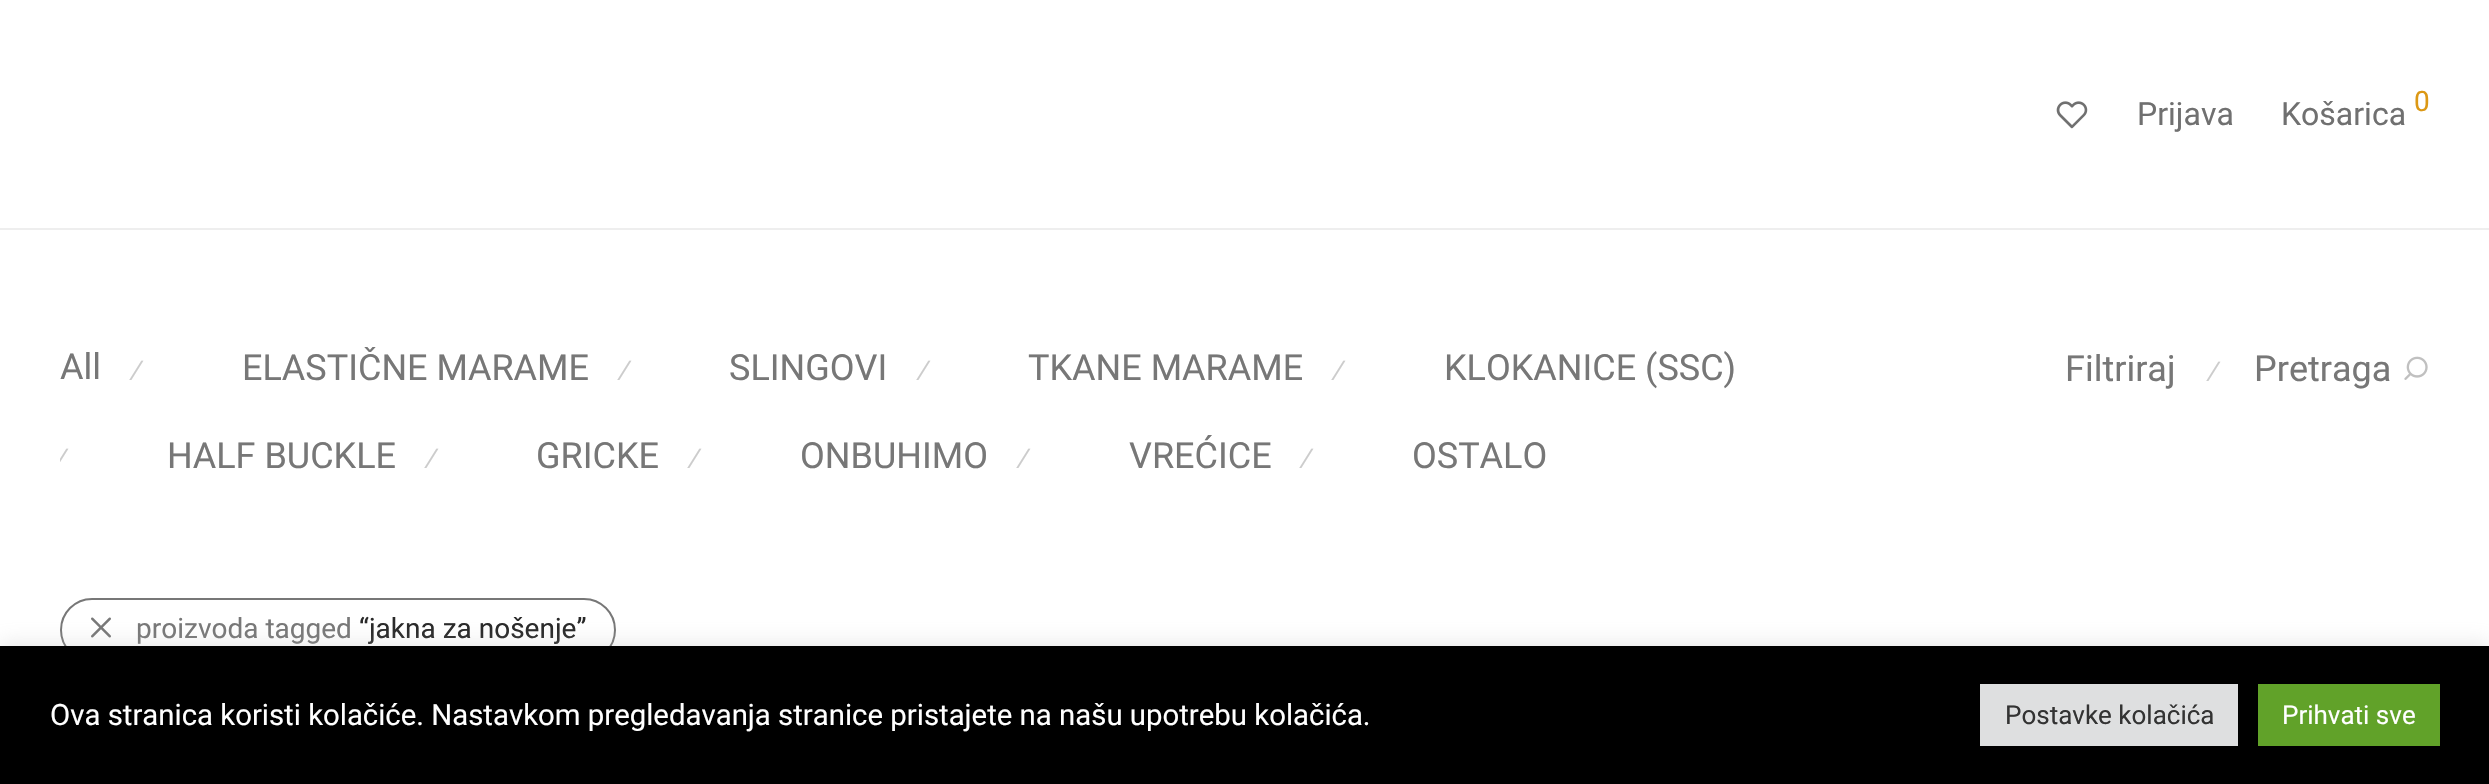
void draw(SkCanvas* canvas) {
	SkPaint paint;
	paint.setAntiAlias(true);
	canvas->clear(0xffffffff);
	paint.setColor(0xffeeeeee);
	canvas->drawRect(SkRect::MakeXYWH(0, 228, 2489, 2), paint);
	canvas->drawImageRect(SkImages::DeferredFromEncodedData(SkData::MakeFromFileName("img1.png")), SkRect::MakeXYWH(2056, 101, 32, 28), SkSamplingOptions());
	SkFont f1(fontMgr->matchFamilyStyle("Roboto", SkFontStyle::Normal()), 32);
	f1.setSubpixel(true);
	paint.setColor(0xff707070);
	canvas->drawString("Prijava", 2137, 125, f1, paint);
	canvas->drawString("Košarica", 2281, 125, f1, paint);
	SkFont f2(fontMgr->matchFamilyStyle("Roboto", SkFontStyle::Normal()), 28);
	f2.setSubpixel(true);
	paint.setColor(0xffdc9814);
	canvas->drawString("0", 2414, 111, f2, paint);
	SkFont f3(fontMgr->matchFamilyStyle("Roboto", SkFontStyle::Normal()), 36);
	f3.setSubpixel(true);
	paint.setColor(0xff777777);
	canvas->drawString("All", 60, 379, f3, paint);
	SkFont f4(fontMgr->matchFamilyStyle("Liberation Sans", SkFontStyle::Normal()), 28);
	f4.setSubpixel(true);
	paint.setColor(0xffcccccc);
	canvas->drawString("⁄", 135, 380, f4, paint);
	paint.setColor(0xff777777);
	canvas->drawString("ELASTIČNE MARAME", 242, 380, f3, paint);
	paint.setColor(0xffcccccc);
	canvas->drawString("⁄", 623, 380, f4, paint);
	paint.setColor(0xff777777);
	canvas->drawString("SLINGOVI", 729, 380, f3, paint);
	paint.setColor(0xffcccccc);
	canvas->drawString("⁄", 922, 380, f4, paint);
	paint.setColor(0xff777777);
	canvas->drawString("TKANE MARAME", 1028, 380, f3, paint);
	paint.setColor(0xffcccccc);
	canvas->drawString("⁄", 1337, 380, f4, paint);
	paint.setColor(0xff777777);
	canvas->drawString("KLOKANICE (SSC)", 1444, 380, f3, paint);
	canvas->save();
	canvas->clipRect(SkRect::MakeXYWH(60, 340, 1896, 146));
	paint.setColor(0xffcccccc);
	canvas->drawString("⁄", 60, 468, f4, paint);
	canvas->restore();
	paint.setColor(0xff777777);
	canvas->drawString("HALF BUCKLE", 167, 468, f3, paint);
	paint.setColor(0xffcccccc);
	canvas->drawString("⁄", 430, 468, f4, paint);
	paint.setColor(0xff777777);
	canvas->drawString("GRICKE", 536, 468, f3, paint);
	paint.setColor(0xffcccccc);
	canvas->drawString("⁄", 693, 468, f4, paint);
	paint.setColor(0xff777777);
	canvas->drawString("ONBUHIMO", 800, 468, f3, paint);
	paint.setColor(0xffcccccc);
	canvas->drawString("⁄", 1022, 468, f4, paint);
	paint.setColor(0xff777777);
	canvas->drawString("VREĆICE", 1129, 468, f3, paint);
	paint.setColor(0xffcccccc);
	canvas->drawString("⁄", 1305, 468, f4, paint);
	paint.setColor(0xff777777);
	canvas->drawString("OSTALO", 1412, 468, f3, paint);
	canvas->drawString("Filtriraj", 2065, 381, f3, paint);
	paint.setColor(0xffcccccc);
	canvas->drawString("⁄", 2212, 381, f4, paint);
	paint.setColor(0xff777777);
	canvas->drawString("Pretraga", 2254, 381, f3, paint);
	canvas->drawImageRect(SkImages::DeferredFromEncodedData(SkData::MakeFromFileName("img2.png")), SkRect::MakeXYWH(2404, 356, 24, 24), SkSamplingOptions());
	paint.setStroke(true);
	paint.setStrokeWidth(2);
	canvas->drawRoundRect(SkRect::MakeXYWH(61, 599, 554, 62), 31, 31, paint);
	canvas->drawImageRect(SkImages::DeferredFromEncodedData(SkData::MakeFromFileName("img3.png")), SkRect::MakeXYWH(91, 617, 20, 21), SkSamplingOptions());
	paint.setStroke(false);
	canvas->drawString("proizvoda tagged", 136, 638, f2, paint);
	paint.setColor(0xff282828);
	canvas->drawString("“jakna za nošenje”", 359, 638, f2, paint);
	paint.setColor(0x4dacabab);
	paint.setMaskFilter(SkMaskFilter::MakeBlur(kNormal_SkBlurStyle, 10));
	canvas->drawRect(SkRect::MakeXYWH(0, 644, 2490, 138), paint);
	paint.setMaskFilter(nullptr);
	paint.setColor(0xff000000);
	canvas->drawRect(SkRect::MakeXYWH(0, 646, 2489, 138), paint);
	SkFont f5(fontMgr->matchFamilyStyle("Roboto", SkFontStyle::Normal()), 29.35);
	f5.setSubpixel(true);
	paint.setColor(0xffffffff);
	canvas->drawString("Ova stranica koristi kolačiće. Nastavkom pregledavanja stranice pristajete na našu upotrebu kolačića.", 50, 725, f5, paint);
	paint.setColor(0xffdedfe0);
	canvas->drawRect(SkRect::MakeXYWH(1980, 684, 258, 62), paint);
	SkFont f6(fontMgr->matchFamilyStyle("Roboto", SkFontStyle::Normal()), 26);
	f6.setSubpixel(true);
	paint.setColor(0xff333333);
	canvas->drawString("Postavke kolačića", 2005, 724, f6, paint);
	paint.setColor(0xff61a229);
	canvas->drawRect(SkRect::MakeXYWH(2258, 684, 182, 62), paint);
	paint.setColor(0xffffffff);
	canvas->drawString("Prihvati sve", 2282, 724, f6, paint);
}
